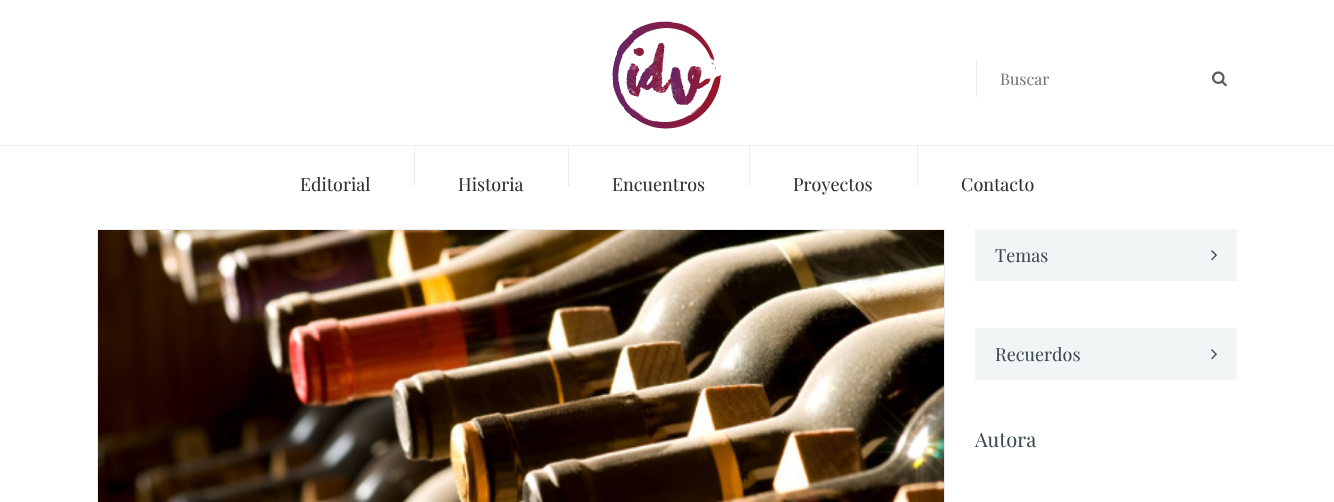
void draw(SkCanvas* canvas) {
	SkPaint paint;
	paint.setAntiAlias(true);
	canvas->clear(0xffffffff);
	paint.setColor(0xffeaeced);
	canvas->drawRect(SkRect::MakeXYWH(0, 145, 1334, 1), paint);
	canvas->drawImageRect(SkImages::DeferredFromEncodedData(SkData::MakeFromFileName("img1.png")), SkRect::MakeXYWH(612, 21, 109, 108), SkSamplingOptions());
	canvas->drawRect(SkRect::MakeXYWH(976, 59, 1, 38), paint);
	SkFont f1(fontMgr->matchFamilyStyle("Playfair Display", SkFontStyle::Normal()), 16);
	f1.setSubpixel(true);
	paint.setColor(0xff777777);
	canvas->drawString("Buscar", 1000, 85, f1, paint);
	canvas->drawImageRect(SkImages::DeferredFromEncodedData(SkData::MakeFromFileName("img2.png")), SkRect::MakeXYWH(1212, 71, 15, 16), SkSamplingOptions());
	SkFont f2(fontMgr->matchFamilyStyle("Playfair Display", SkFontStyle::Normal()), 18);
	f2.setSubpixel(true);
	paint.setColor(0xff2e3334);
	canvas->drawString("Editorial", 300, 191, f2, paint);
	paint.setColor(0xffeaeced);
	canvas->drawRect(SkRect::MakeXYWH(414, 146, 1, 40), paint);
	paint.setColor(0xff2e3334);
	canvas->drawString("Historia", 458, 191, f2, paint);
	paint.setColor(0xffeaeced);
	canvas->drawRect(SkRect::MakeXYWH(568, 146, 1, 40), paint);
	paint.setColor(0xff2e3334);
	canvas->drawString("Encuentros", 612, 191, f2, paint);
	paint.setColor(0xffeaeced);
	canvas->drawRect(SkRect::MakeXYWH(749, 146, 1, 40), paint);
	paint.setColor(0xff2e3334);
	canvas->drawString("Proyectos", 793, 191, f2, paint);
	paint.setColor(0xffeaeced);
	canvas->drawRect(SkRect::MakeXYWH(917, 146, 1, 40), paint);
	paint.setColor(0xff2e3334);
	canvas->drawString("Contacto", 961, 191, f2, paint);
	paint.setStroke(true);
	paint.setStrokeWidth(1);
	paint.setColor(0xffeaeced);
	canvas->drawRect(SkRect::MakeXYWH(97.5, 229.5, 847, 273), paint);
	canvas->drawImageRect(SkImages::DeferredFromEncodedData(SkData::MakeFromFileName("img3.png")), SkRect::MakeXYWH(98, 230, 846, 272), SkSamplingOptions());
	paint.setStroke(false);
	paint.setColor(0xfff2f5f6);
	canvas->drawRect(SkRect::MakeXYWH(975, 229, 262, 52), paint);
	paint.setColor(0xff3c4c50);
	canvas->drawString("Temas", 995, 262, f2, paint);
	canvas->drawImageRect(SkImages::DeferredFromEncodedData(SkData::MakeFromFileName("img4.png")), SkRect::MakeXYWH(1211, 250, 6, 11), SkSamplingOptions());
	paint.setColor(0xfff2f5f6);
	canvas->drawRect(SkRect::MakeXYWH(975, 328, 262, 52), paint);
	paint.setColor(0xff3c4c50);
	canvas->drawString("Recuerdos", 995, 361, f2, paint);
	canvas->drawImageRect(SkImages::DeferredFromEncodedData(SkData::MakeFromFileName("img4.png")), SkRect::MakeXYWH(1211, 349, 6, 11), SkSamplingOptions());
	SkFont f3(fontMgr->matchFamilyStyle("Playfair Display", SkFontStyle::Normal()), 20);
	f3.setSubpixel(true);
	canvas->drawString("Autora", 975, 447, f3, paint);
}
